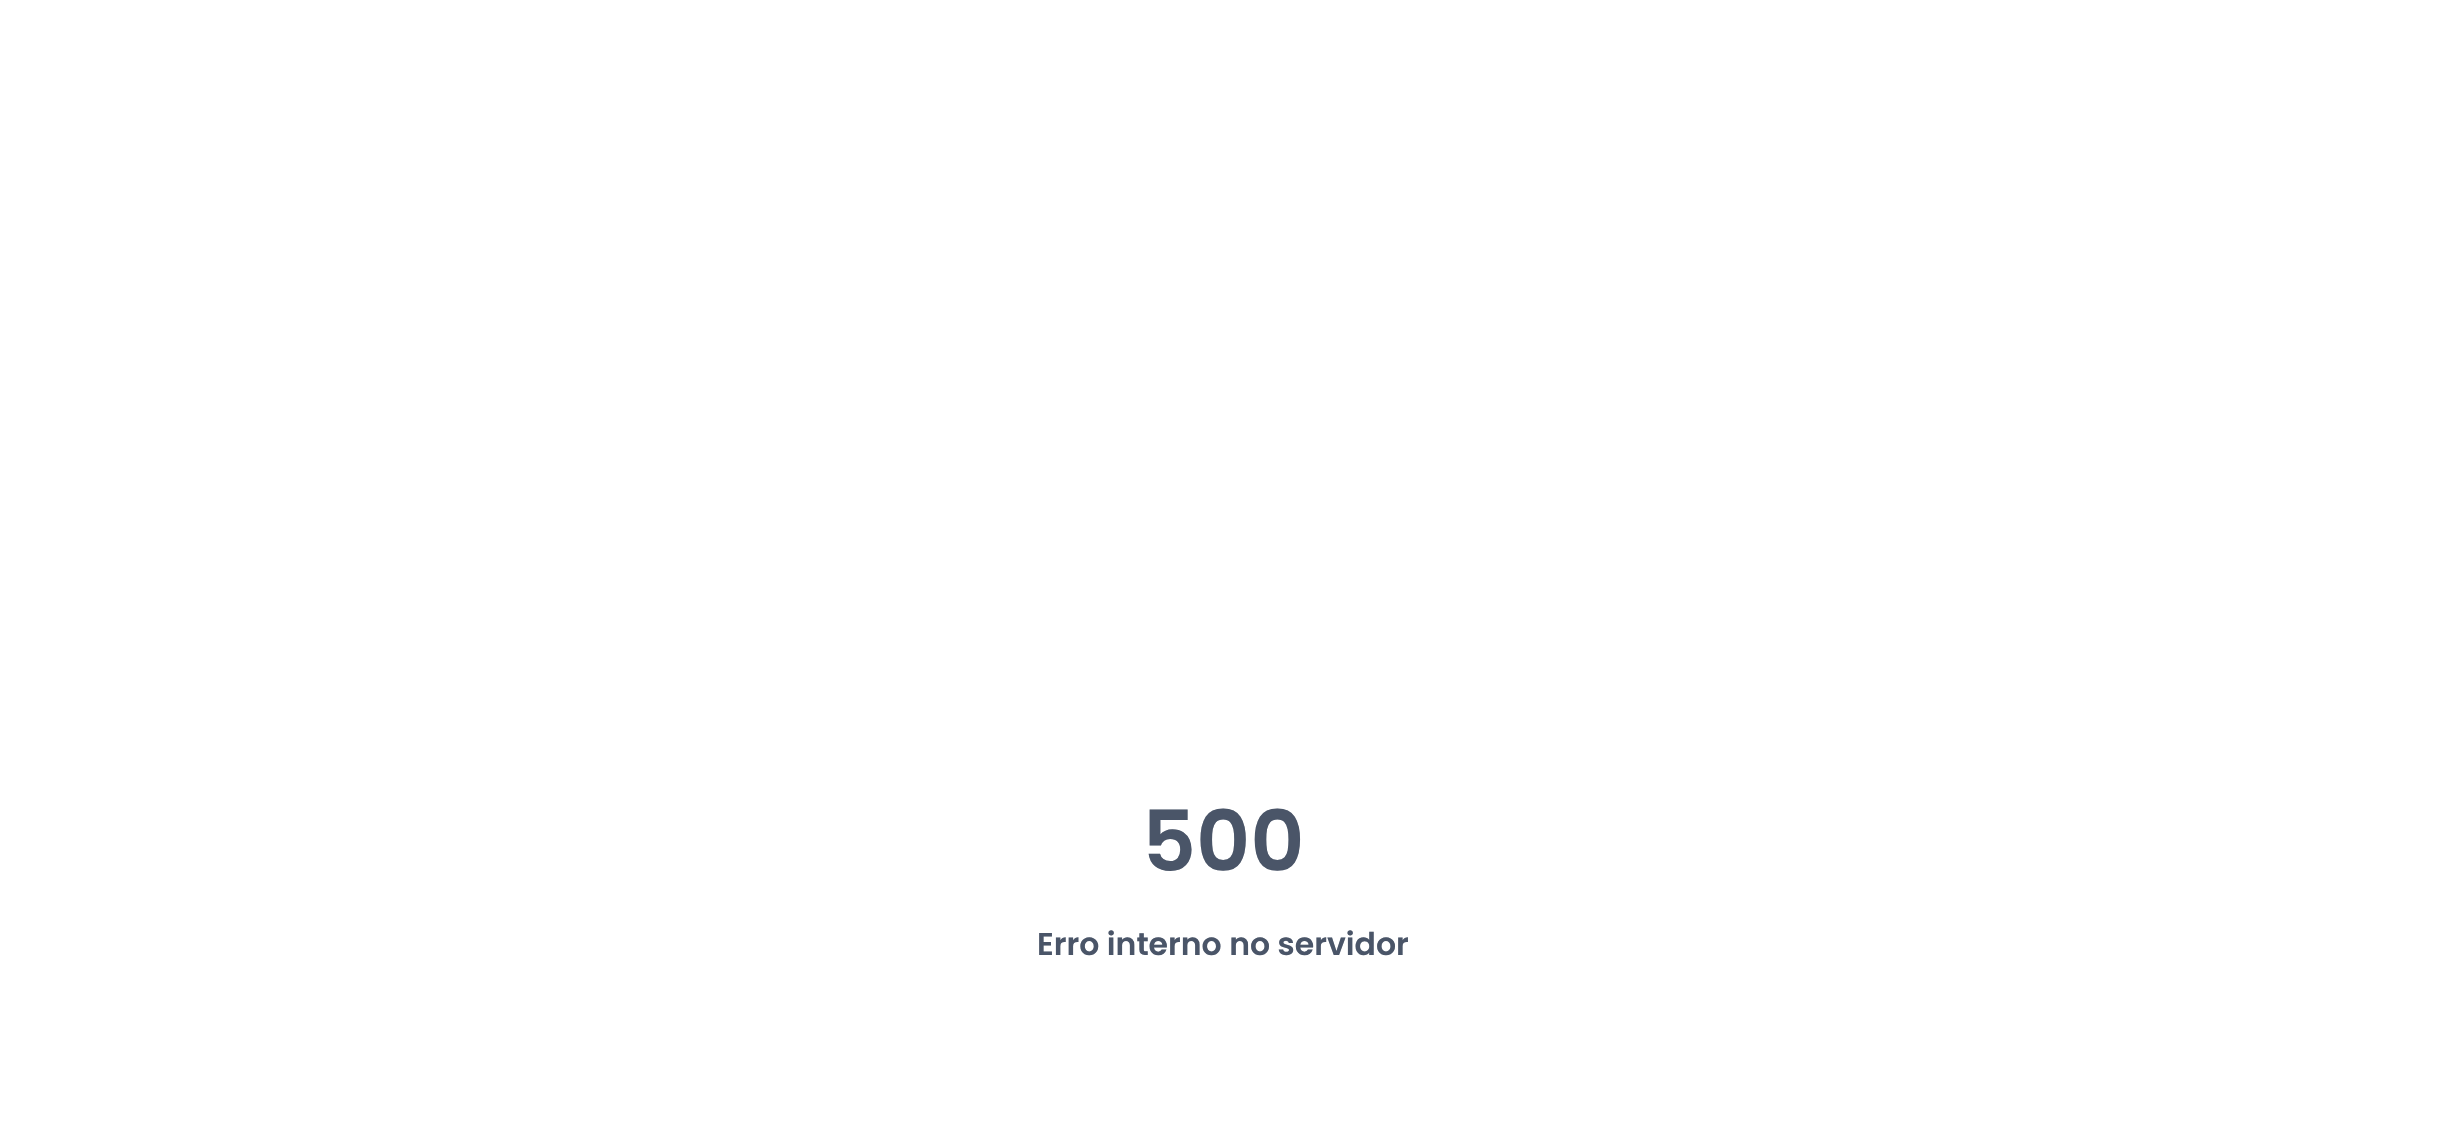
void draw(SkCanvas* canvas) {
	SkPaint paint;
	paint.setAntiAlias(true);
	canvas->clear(0xffffffff);
	SkFont f1(fontMgr->matchFamilyStyle("Poppins", SkFontStyle(600, SkFontStyle::kNormal_Width, SkFontStyle::kUpright_Slant)), 84);
	f1.setSubpixel(true);
	paint.setColor(0xff4a5568);
	canvas->drawString("500", 1142, 871, f1, paint);
	SkFont f2(fontMgr->matchFamilyStyle("Poppins", SkFontStyle(600, SkFontStyle::kNormal_Width, SkFontStyle::kUpright_Slant)), 31.5);
	f2.setSubpixel(true);
	canvas->drawString("Erro interno no servidor", 1037, 955, f2, paint);
}
